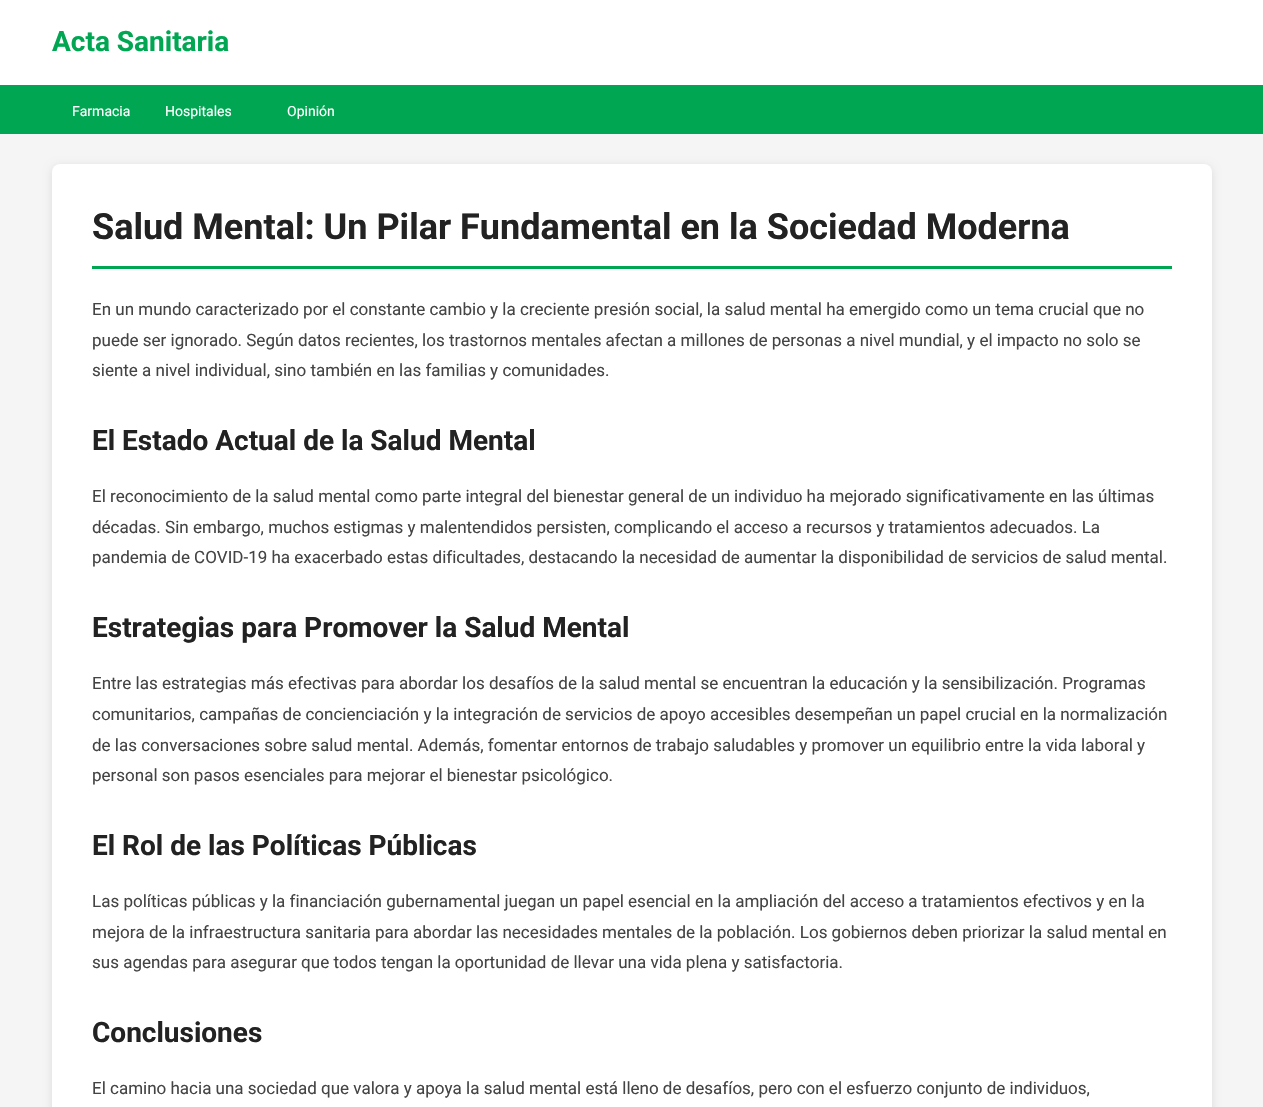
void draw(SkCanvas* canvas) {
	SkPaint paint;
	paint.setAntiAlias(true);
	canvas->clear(0xfff5f5f5);
	paint.setColor(0xffffffff);
	canvas->drawRect(SkRect::MakeXYWH(0, 0, 1263, 85), paint);
	paint.setColor(0xff00a651);
	canvas->drawRect(SkRect::MakeXYWH(0, 85, 1263, 49), paint);
	SkFont f1(fontMgr->matchFamilyStyle("Roboto", SkFontStyle::Bold()), 28);
	f1.setSubpixel(true);
	canvas->drawString("Acta Sanitaria", 52, 51, f1, paint);
	SkFont f2(fontMgr->matchFamilyStyle("Roboto", SkFontStyle::Normal()), 14);
	f2.setSubpixel(true);
	paint.setColor(0xffffffff);
	canvas->drawString("Farmacia", 72, 116, f2, paint);
	canvas->drawString("Hospitales", 165, 116, f2, paint);
	canvas->drawString("Opinión", 287, 116, f2, paint);
	paint.setColor(0x1a000000);
	paint.setMaskFilter(SkMaskFilter::MakeBlur(kNormal_SkBlurStyle, 4));
	canvas->drawRoundRect(SkRect::MakeXYWH(52, 166, 1160, 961), 8, 8, paint);
	paint.setMaskFilter(nullptr);
	paint.setColor(0xffffffff);
	canvas->drawRoundRect(SkRect::MakeXYWH(52, 164, 1160, 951), 8, 8, paint);
	paint.setColor(0xff00a651);
	canvas->drawRect(SkRect::MakeXYWH(92, 266, 1080, 3), paint);
	SkFont f3(fontMgr->matchFamilyStyle("Roboto", SkFontStyle::Bold()), 36);
	f3.setSubpixel(true);
	paint.setColor(0xff222222);
	canvas->drawString("Salud Mental: Un Pilar Fundamental en la Sociedad Moderna", 92, 239, f3, paint);
	SkFont f4(fontMgr->matchFamilyStyle("Roboto", SkFontStyle::Normal()), 17);
	f4.setSubpixel(true);
	paint.setColor(0xff444444);
	canvas->drawString("En un mundo caracterizado por el constante cambio y la creciente presión social, la salud mental ha emergido como un tema crucial que no", 92, 315, f4, paint);
	canvas->drawString("puede ser ignorado. Según datos recientes, los trastornos mentales afectan a millones de personas a nivel mundial, y el impacto no solo se", 92, 346, f4, paint);
	canvas->drawString("siente a nivel individual, sino también en las familias y comunidades.", 92, 376, f4, paint);
	paint.setColor(0xff222222);
	canvas->drawString("El Estado Actual de la Salud Mental", 92, 450, f1, paint);
	paint.setColor(0xff444444);
	canvas->drawString("El reconocimiento de la salud mental como parte integral del bienestar general de un individuo ha mejorado significativamente en las últimas", 92, 502, f4, paint);
	canvas->drawString("décadas. Sin embargo, muchos estigmas y malentendidos persisten, complicando el acceso a recursos y tratamientos adecuados. La", 92, 533, f4, paint);
	canvas->drawString("pandemia de COVID-19 ha exacerbado estas dificultades, destacando la necesidad de aumentar la disponibilidad de servicios de salud mental.", 92, 563, f4, paint);
	paint.setColor(0xff222222);
	canvas->drawString("Estrategias para Promover la Salud Mental", 92, 637, f1, paint);
	paint.setColor(0xff444444);
	canvas->drawString("Entre las estrategias más efectivas para abordar los desafíos de la salud mental se encuentran la educación y la sensibilización. Programas", 92, 689, f4, paint);
	canvas->drawString("comunitarios, campañas de concienciación y la integración de servicios de apoyo accesibles desempeñan un papel crucial en la normalización", 92, 720, f4, paint);
	canvas->drawString("de las conversaciones sobre salud mental. Además, fomentar entornos de trabajo saludables y promover un equilibrio entre la vida laboral y", 92, 751, f4, paint);
	canvas->drawString("personal son pasos esenciales para mejorar el bienestar psicológico.", 92, 781, f4, paint);
	paint.setColor(0xff222222);
	canvas->drawString("El Rol de las Políticas Públicas", 92, 855, f1, paint);
	paint.setColor(0xff444444);
	canvas->drawString("Las políticas públicas y la financiación gubernamental juegan un papel esencial en la ampliación del acceso a tratamientos efectivos y en la", 92, 907, f4, paint);
	canvas->drawString("mejora de la infraestructura sanitaria para abordar las necesidades mentales de la población. Los gobiernos deben priorizar la salud mental en", 92, 938, f4, paint);
	canvas->drawString("sus agendas para asegurar que todos tengan la oportunidad de llevar una vida plena y satisfactoria.", 92, 968, f4, paint);
	paint.setColor(0xff222222);
	canvas->drawString("Conclusiones", 92, 1042, f1, paint);
	paint.setColor(0xff444444);
	canvas->drawString("El camino hacia una sociedad que valora y apoya la salud mental está lleno de desafíos, pero con el esfuerzo conjunto de individuos,", 92, 1094, f4, paint);
}
